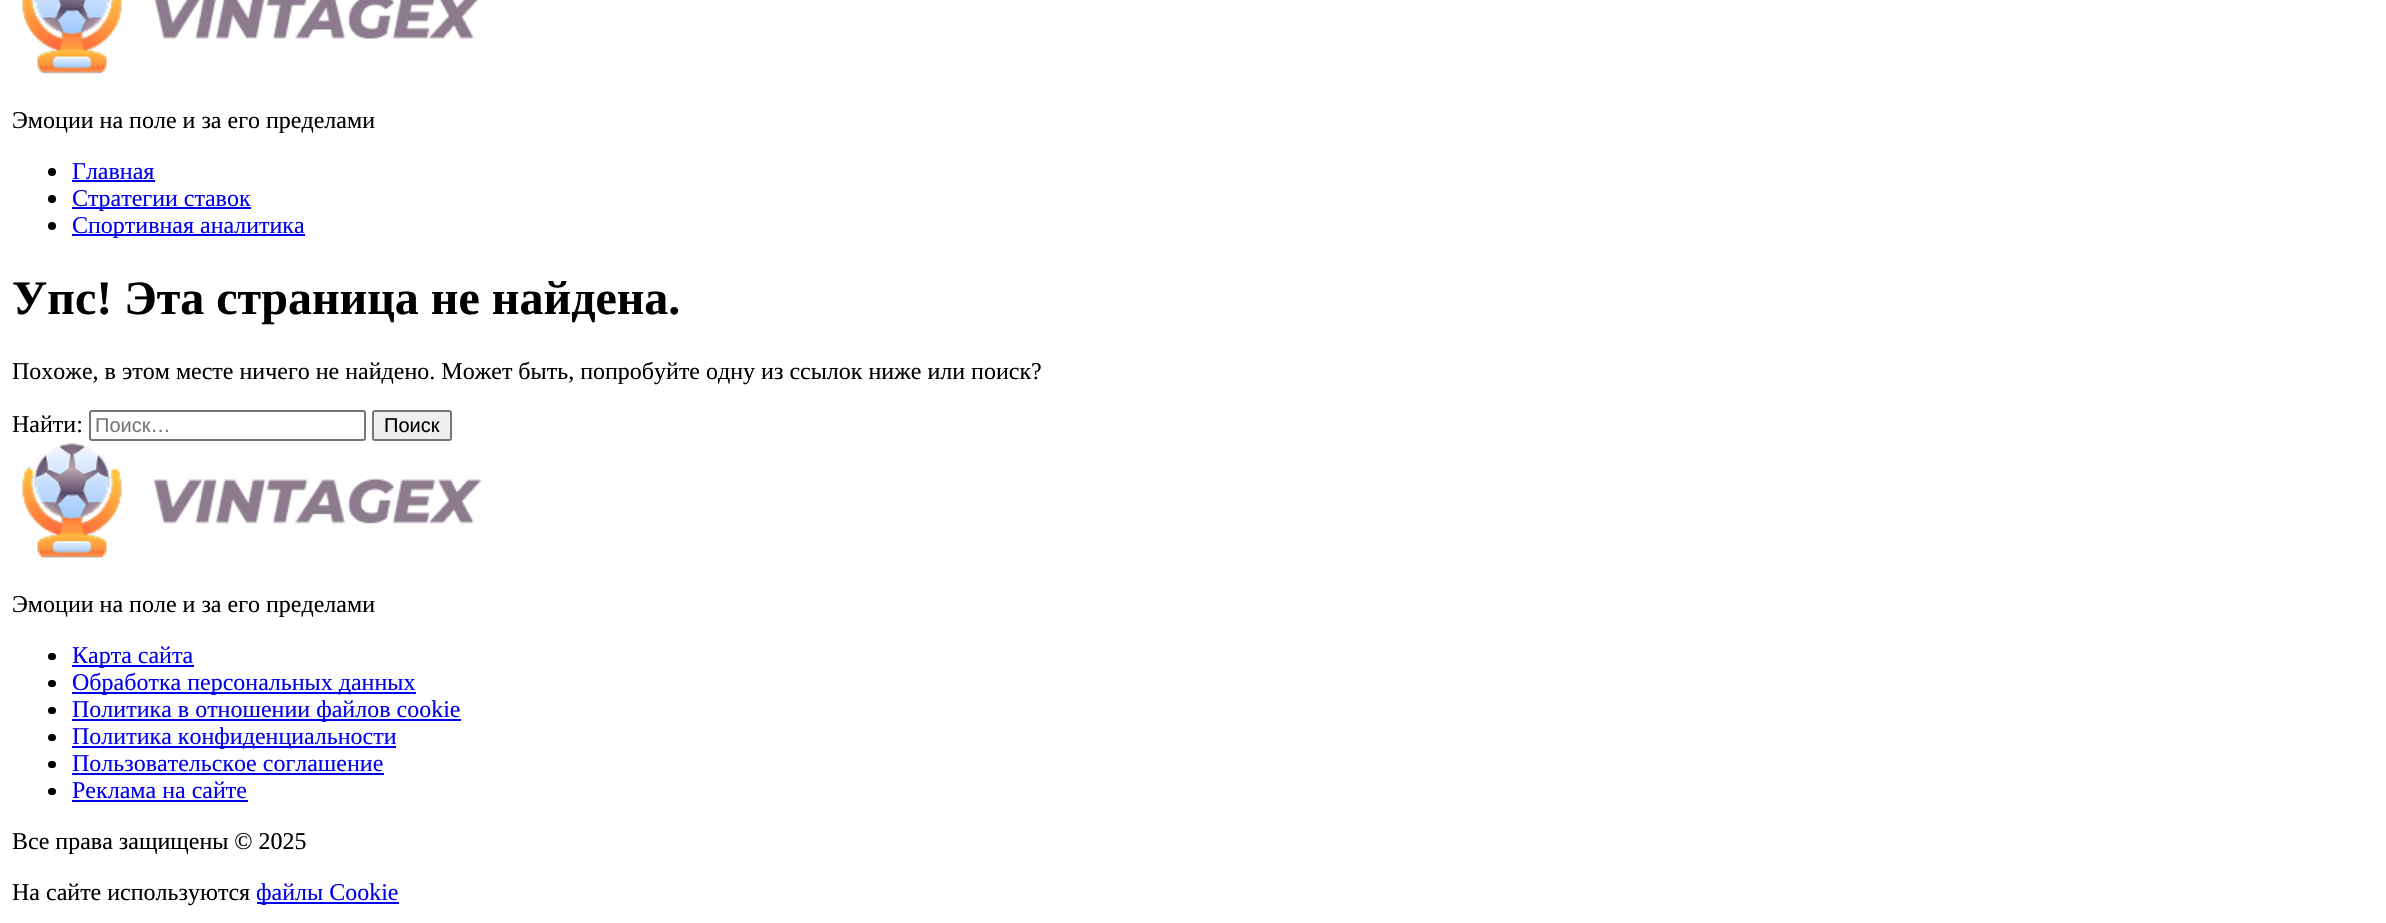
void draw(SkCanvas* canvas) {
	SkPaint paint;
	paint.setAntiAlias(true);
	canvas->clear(0xffffffff);
	canvas->drawImageRect(SkImages::DeferredFromEncodedData(SkData::MakeFromFileName("img1.png")), SkRect::MakeXYWH(22, 0, 457, 74), SkSamplingOptions());
	SkFont f1(fontMgr->matchFamilyStyle("Liberation Serif", SkFontStyle::Normal()), 24);
	f1.setSubpixel(true);
	paint.setColor(0xff000000);
	canvas->drawString("Эмоции на поле и за его пределами", 12, 128, f1, paint);
	canvas->drawCircle(52, 172, 4, paint);
	paint.setColor(0xff0000ee);
	canvas->drawString("Главная", 72, 179, f1, paint);
	canvas->drawRect(SkRect::MakeXYWH(72, 180, 83, 2), paint);
	paint.setColor(0xff000000);
	canvas->drawCircle(52, 199, 4, paint);
	paint.setColor(0xff0000ee);
	canvas->drawRect(SkRect::MakeXYWH(72, 207, 179, 2), paint);
	canvas->drawString("Стратегии ставок", 72, 206, f1, paint);
	paint.setColor(0xff000000);
	canvas->drawCircle(52, 226, 4, paint);
	paint.setColor(0xff0000ee);
	canvas->drawRect(SkRect::MakeXYWH(72, 234, 233, 2), paint);
	canvas->drawString("Спортивная аналитика", 72, 233, f1, paint);
	SkFont f2(fontMgr->matchFamilyStyle("Liberation Serif", SkFontStyle::Bold()), 48);
	f2.setSubpixel(true);
	paint.setColor(0xff000000);
	canvas->drawString("Упс! Эта страница не найдена.", 12, 314, f2, paint);
	canvas->drawString("Похоже, в этом месте ничего не найдено. Может быть, попробуйте одну из ссылок ниже или поиск?", 12, 379, f1, paint);
	canvas->drawString("Найти:", 12, 432, f1, paint);
	paint.setStroke(true);
	paint.setStrokeWidth(2);
	paint.setColor(0xff767676);
	canvas->drawRoundRect(SkRect::MakeXYWH(90, 411, 275, 29), 2, 2, paint);
	SkFont f3(fontMgr->matchFamilyStyle("Liberation Sans", SkFontStyle::Normal()), 20);
	f3.setSubpixel(true);
	paint.setStroke(false);
	paint.setColor(0xff757575);
	canvas->drawString("Поиск…", 95, 432, f3, paint);
	paint.setColor(0xffefefef);
	canvas->drawRoundRect(SkRect::MakeXYWH(373, 411, 78, 29), 2, 2, paint);
	paint.setStroke(true);
	paint.setColor(0xff767676);
	canvas->drawRoundRect(SkRect::MakeXYWH(373, 411, 78, 29), 2, 2, paint);
	paint.setStroke(false);
	paint.setColor(0xff000000);
	canvas->drawString("Поиск", 384, 432, f3, paint);
	canvas->drawImageRect(SkImages::DeferredFromEncodedData(SkData::MakeFromFileName("img2.png")), SkRect::MakeXYWH(22, 443, 460, 115), SkSamplingOptions());
	canvas->drawString("Эмоции на поле и за его пределами", 12, 612, f1, paint);
	canvas->drawRoundRect(SkRect::MakeXYWH(48, 653, 8, 7), 3.5, 3.5, paint);
	paint.setColor(0xff0000ee);
	canvas->drawRect(SkRect::MakeXYWH(72, 665, 122, 2), paint);
	canvas->drawString("Карта сайта", 72, 663, f1, paint);
	paint.setColor(0xff000000);
	canvas->drawRoundRect(SkRect::MakeXYWH(48, 680, 8, 7), 3.5, 3.5, paint);
	paint.setColor(0xff0000ee);
	canvas->drawRect(SkRect::MakeXYWH(72, 692, 344, 2), paint);
	canvas->drawString("Обработка персональных данных", 72, 690, f1, paint);
	paint.setColor(0xff000000);
	canvas->drawRoundRect(SkRect::MakeXYWH(48, 707, 8, 7), 3.5, 3.5, paint);
	paint.setColor(0xff0000ee);
	canvas->drawRect(SkRect::MakeXYWH(72, 719, 389, 2), paint);
	canvas->drawString("Политика в отношении файлов cookie", 72, 717, f1, paint);
	paint.setColor(0xff000000);
	canvas->drawRoundRect(SkRect::MakeXYWH(48, 734, 8, 7), 3.5, 3.5, paint);
	paint.setColor(0xff0000ee);
	canvas->drawRect(SkRect::MakeXYWH(72, 746, 324, 2), paint);
	canvas->drawString("Политика конфиденциальности", 72, 744, f1, paint);
	paint.setColor(0xff000000);
	canvas->drawRoundRect(SkRect::MakeXYWH(48, 761, 8, 7), 3.5, 3.5, paint);
	paint.setColor(0xff0000ee);
	canvas->drawString("Пользовательское соглашение", 72, 771, f1, paint);
	canvas->drawRect(SkRect::MakeXYWH(72, 773, 312, 2), paint);
	paint.setColor(0xff000000);
	canvas->drawRoundRect(SkRect::MakeXYWH(48, 788, 8, 7), 3.5, 3.5, paint);
	paint.setColor(0xff0000ee);
	canvas->drawString("Реклама на сайте", 72, 798, f1, paint);
	canvas->drawRect(SkRect::MakeXYWH(72, 800, 176, 2), paint);
	paint.setColor(0xff000000);
	canvas->drawString("Все права защищены © 2025", 12, 849, f1, paint);
	canvas->drawString("На сайте используются", 12, 900, f1, paint);
	paint.setColor(0xff0000ee);
	canvas->drawRect(SkRect::MakeXYWH(257, 902, 142, 2), paint);
	canvas->drawString("файлы Cookie", 256, 900, f1, paint);
}
